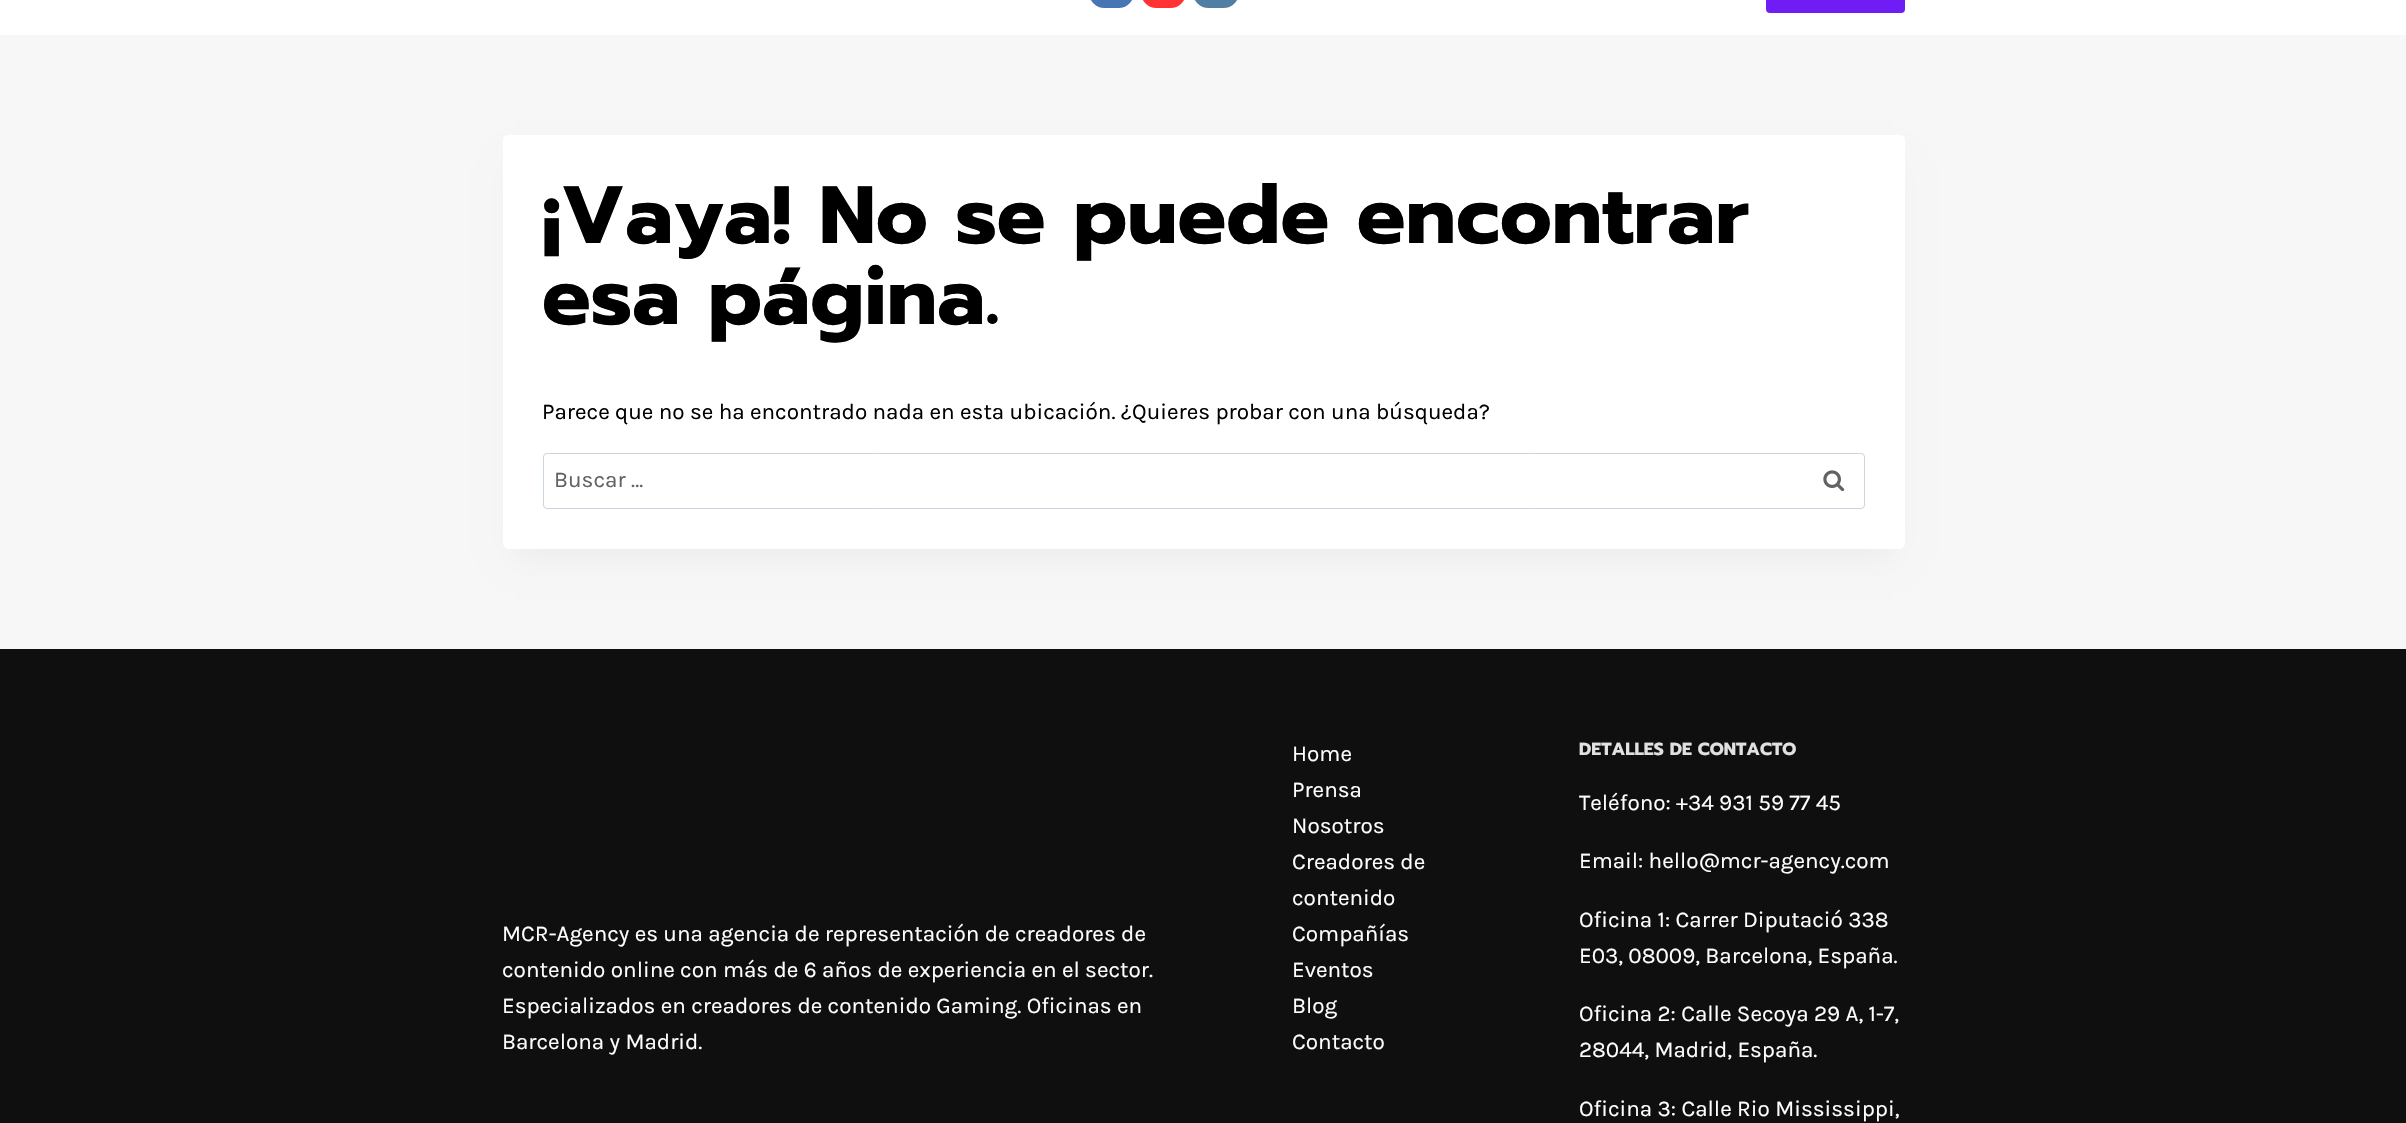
void draw(SkCanvas* canvas) {
	SkPaint paint;
	paint.setAntiAlias(true);
	canvas->clear(0xfff7f7f7);
	paint.setColor(0xffffffff);
	canvas->drawRect(SkRect::MakeXYWH(0, 0, 2406, 35), paint);
	paint.setColor(0xff4875b4);
	canvas->drawRoundRect(SkRect::MakeXYWH(1089, -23, 45, 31), 22.5, 22.5, paint);
	paint.setColor(0xffff3333);
	canvas->drawRoundRect(SkRect::MakeXYWH(1141, -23, 45, 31), 22.5, 22.5, paint);
	paint.setColor(0xff517fa4);
	canvas->drawRoundRect(SkRect::MakeXYWH(1193, -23, 46, 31), 22.5, 22.5, paint);
	paint.setColor(0xff701df5);
	canvas->drawRoundRect(SkRect::MakeXYWH(1766, -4, 139, 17), 4, 4, paint);
	paint.setColor(0x0d000000);
	paint.setMaskFilter(SkMaskFilter::MakeBlur(kNormal_SkBlurStyle, 15.5));
	canvas->drawRect(SkRect::MakeXYWH(515, 166, 1378, 389), paint);
	paint.setMaskFilter(nullptr);
	paint.setColor(0xffffffff);
	canvas->drawRoundRect(SkRect::MakeXYWH(503, 135, 1402, 414), 5, 5, paint);
	SkFont f1(fontMgr->matchFamilyStyle("Prompt", SkFontStyle::Bold()), 81.25);
	f1.setSubpixel(true);
	paint.setColor(0xff000000);
	canvas->drawString("¡Vaya! No se puede encontrar", 542, 243, f1, paint);
	canvas->drawString("esa página.", 542, 324, f1, paint);
	SkFont f2(fontMgr->matchFamilyStyle("Karla", SkFontStyle::Normal()), 22.5);
	f2.setSubpixel(true);
	canvas->drawString("Parece que no se ha encontrado nada en esta ubicación. ¿Quieres probar con una búsqueda?", 542, 419, f2, paint);
	paint.setStroke(true);
	paint.setStrokeWidth(1);
	paint.setColor(0xffcbd5e0);
	canvas->drawRoundRect(SkRect::MakeXYWH(543.5, 453.5, 1321, 55), 3.5, 3.5, paint);
	paint.setStroke(false);
	paint.setColor(0xff626262);
	canvas->drawString("Buscar …", 554, 487, f2, paint);
	canvas->drawImageRect(SkImages::DeferredFromEncodedData(SkData::MakeFromFileName("img1.png")), SkRect::MakeXYWH(1823, 470, 22, 21), SkSamplingOptions());
	paint.setColor(0xff0f0f0f);
	canvas->drawRect(SkRect::MakeXYWH(0, 649, 2406, 474), paint);
	paint.setColor(0xffffffff);
	canvas->drawString("MCR-Agency es una agencia de representación de creadores de", 502, 941, f2, paint);
	canvas->drawString("contenido online con más de 6 años de experiencia en el sector.", 502, 977, f2, paint);
	canvas->drawString("Especializados en creadores de contenido Gaming. Oficinas en", 502, 1013, f2, paint);
	canvas->drawString("Barcelona y Madrid.", 502, 1049, f2, paint);
	canvas->drawString("Home", 1292, 761, f2, paint);
	canvas->drawString("Prensa", 1292, 797, f2, paint);
	canvas->drawString("Nosotros", 1292, 833, f2, paint);
	canvas->drawString("Creadores de", 1292, 869, f2, paint);
	canvas->drawString("contenido", 1292, 905, f2, paint);
	canvas->drawString("Compañías", 1292, 941, f2, paint);
	canvas->drawString("Eventos", 1292, 977, f2, paint);
	canvas->drawString("Blog", 1292, 1013, f2, paint);
	canvas->drawString("Contacto", 1292, 1049, f2, paint);
	SkFont f3(fontMgr->matchFamilyStyle("Prompt", SkFontStyle::Bold()), 17.5);
	f3.setSubpixel(true);
	paint.setColor(0xffe1e1e1);
	canvas->drawString("DETALLES DE CONTACTO", 1579, 755, f3, paint);
	paint.setColor(0xffffffff);
	canvas->drawString("Teléfono: +34 931 59 77 45", 1579, 810, f2, paint);
	canvas->drawString("Email: hello@mcr-agency.com", 1579, 868, f2, paint);
	canvas->drawString("Oficina 1: Carrer Diputació 338", 1579, 927, f2, paint);
	canvas->drawString("E03, 08009, Barcelona, España.", 1579, 963, f2, paint);
	canvas->drawString("Oficina 2: Calle Secoya 29 A, 1-7,", 1579, 1021, f2, paint);
	canvas->drawString("28044, Madrid, España.", 1579, 1057, f2, paint);
	canvas->drawString("Oficina 3: Calle Rio Mississippi,", 1579, 1116, f2, paint);
}
